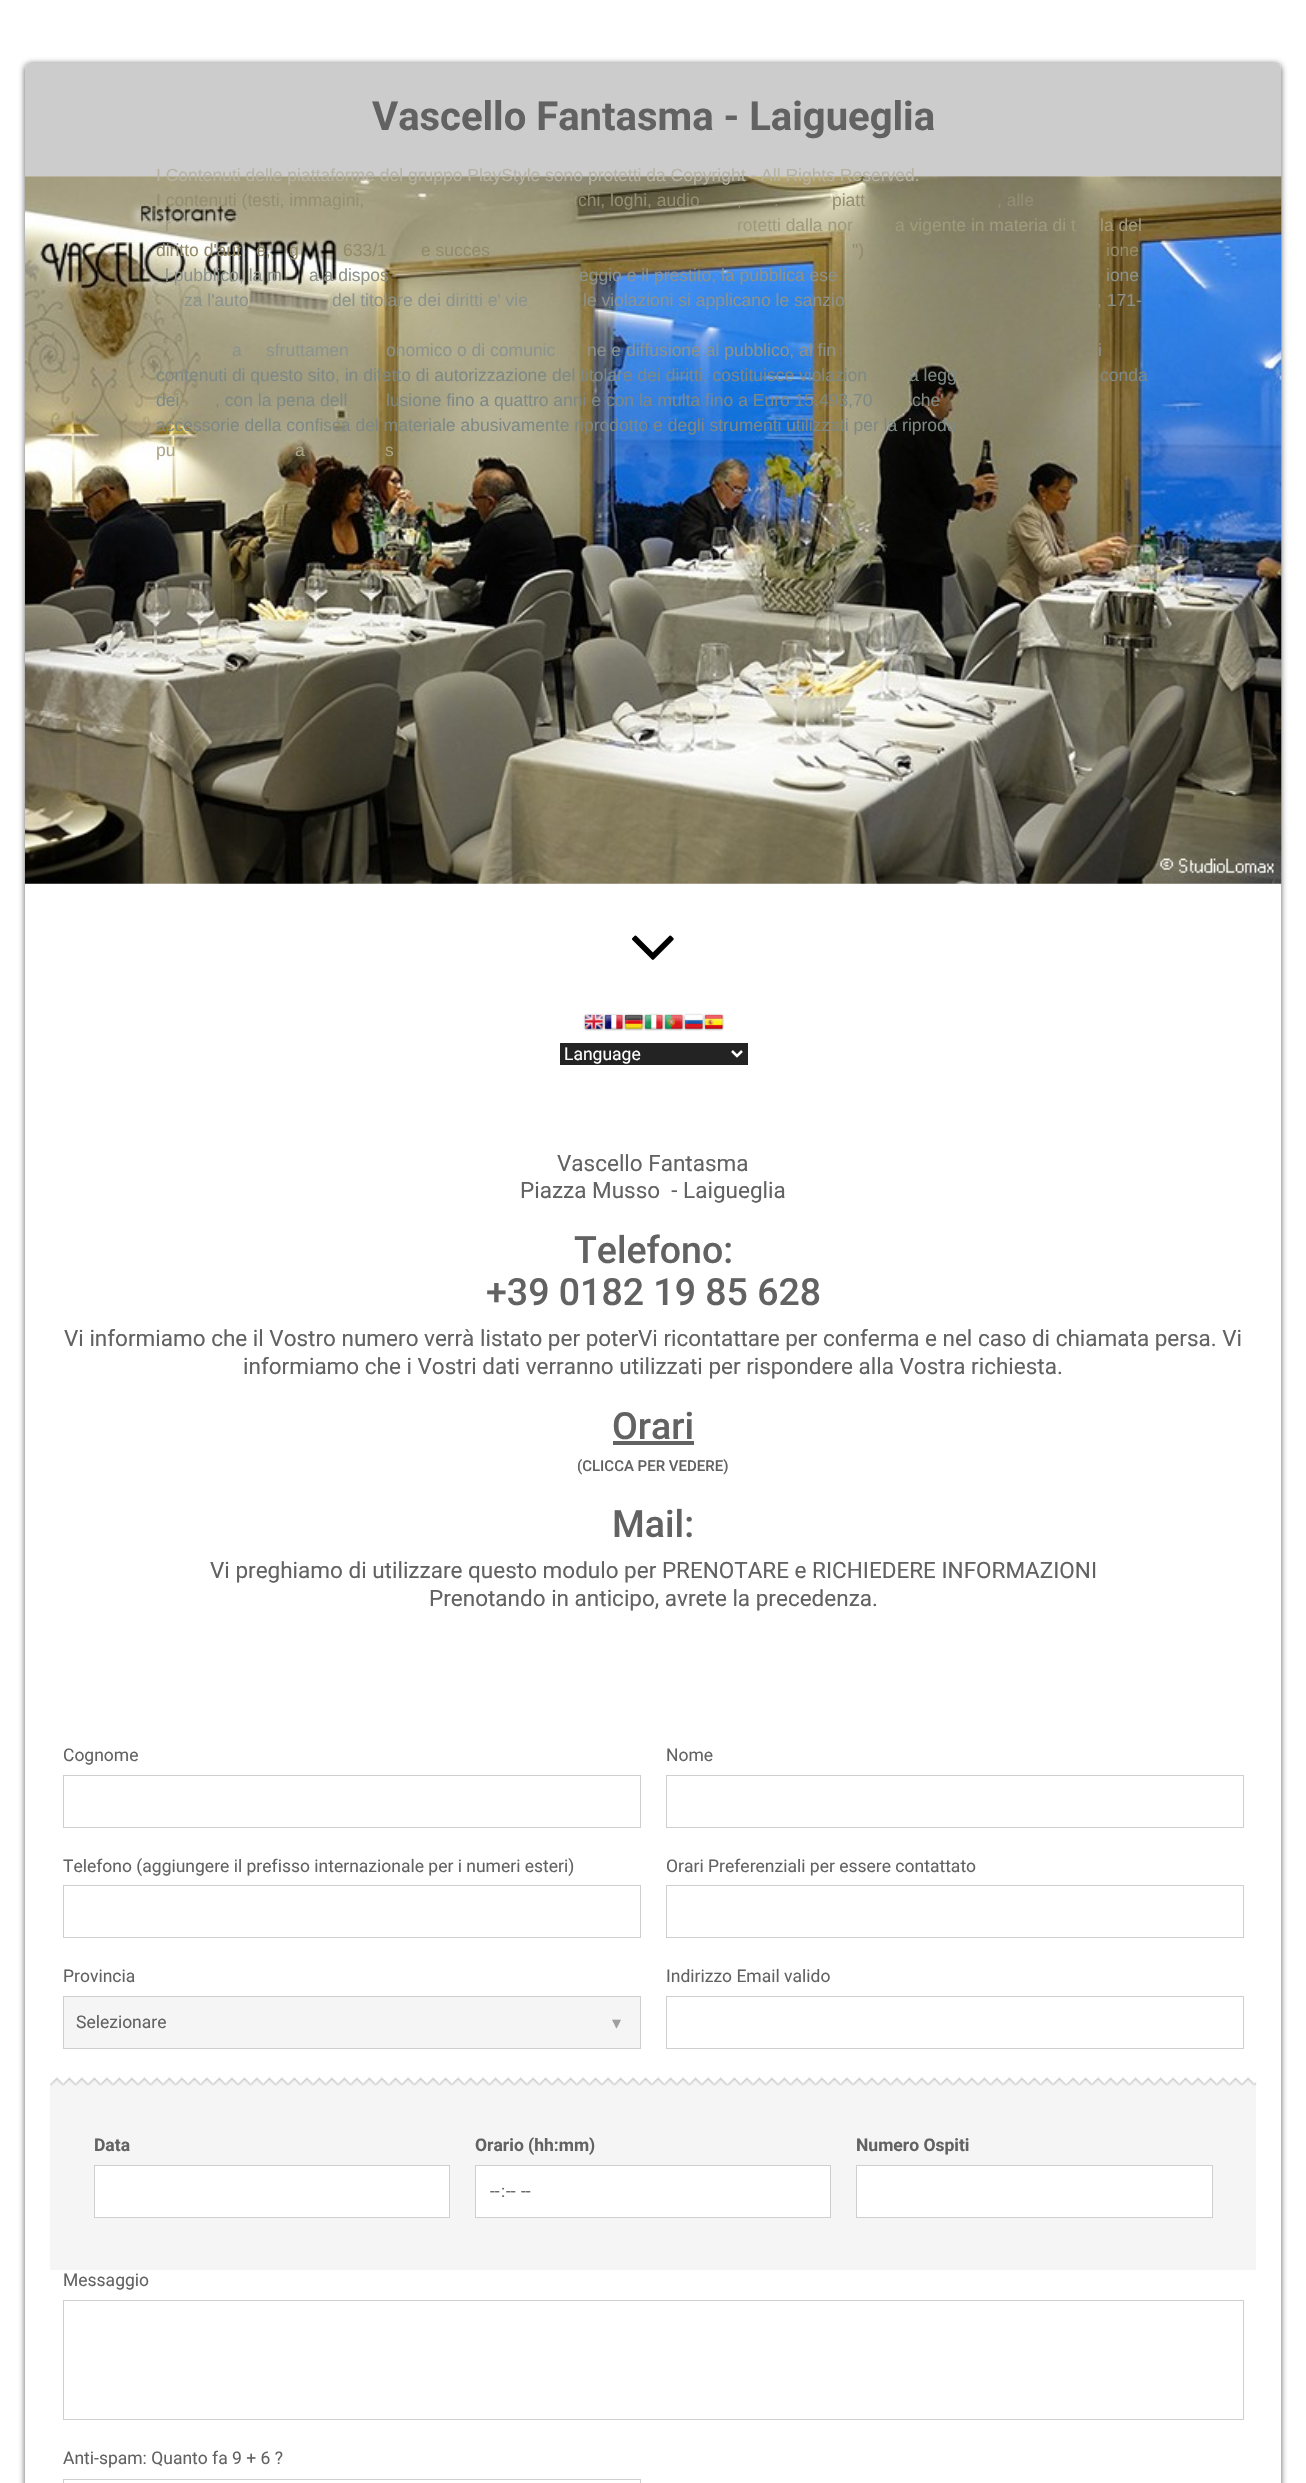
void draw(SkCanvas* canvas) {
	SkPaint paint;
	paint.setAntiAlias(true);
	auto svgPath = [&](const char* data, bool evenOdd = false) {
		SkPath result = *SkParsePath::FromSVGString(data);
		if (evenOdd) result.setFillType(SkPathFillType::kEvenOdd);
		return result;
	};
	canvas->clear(0xffffffff);
	paint.setColor(0xa6000000);
	paint.setMaskFilter(SkMaskFilter::MakeBlur(kNormal_SkBlurStyle, 3));
	canvas->drawRoundRect(SkRect::MakeXYWH(25, 64, 1256, 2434), 6, 6, paint);
	paint.setMaskFilter(nullptr);
	paint.setColor(0xffffffff);
	canvas->drawPath(svgPath("M31 63H1275C1278.5 63 1281 65.5 1281 69V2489H25V69C25 65.5 27.5 63 31 63Z"), paint);
	paint.setColor(0xffcccccc);
	canvas->drawPath(svgPath("M31 63H1275C1278.5 63 1281 65.5 1281 69V176H25V69C25 65.5 27.5 63 31 63Z"), paint);
	canvas->drawRect(SkRect::MakeXYWH(29, 63, 1250, 1), paint);
	SkFont f1(fontMgr->matchFamilyStyle("Roboto", SkFontStyle::Bold()), 40);
	f1.setSubpixel(true);
	paint.setColor(0xff626262);
	canvas->drawString("Vascello Fantasma - Laigueglia", 372, 130, f1, paint);
	canvas->drawImageRect(SkImages::DeferredFromEncodedData(SkData::MakeFromFileName("img1.png")), SkRect::MakeXYWH(25, 176, 1257, 708), SkSamplingOptions());
	canvas->drawImageRect(SkImages::DeferredFromEncodedData(SkData::MakeFromFileName("img2.png")), SkRect::MakeXYWH(632, 935, 42, 25), SkSamplingOptions());
	canvas->drawImageRect(SkImages::DeferredFromEncodedData(SkData::MakeFromFileName("img3.png")), SkRect::MakeXYWH(583, 1013, 21, 18), SkSamplingOptions());
	canvas->drawImageRect(SkImages::DeferredFromEncodedData(SkData::MakeFromFileName("img4.png")), SkRect::MakeXYWH(603, 1013, 21, 18), SkSamplingOptions());
	canvas->drawImageRect(SkImages::DeferredFromEncodedData(SkData::MakeFromFileName("img5.png")), SkRect::MakeXYWH(623, 1013, 21, 18), SkSamplingOptions());
	canvas->drawImageRect(SkImages::DeferredFromEncodedData(SkData::MakeFromFileName("img6.png")), SkRect::MakeXYWH(643, 1013, 21, 18), SkSamplingOptions());
	canvas->drawImageRect(SkImages::DeferredFromEncodedData(SkData::MakeFromFileName("img7.png")), SkRect::MakeXYWH(663, 1013, 21, 18), SkSamplingOptions());
	canvas->drawImageRect(SkImages::DeferredFromEncodedData(SkData::MakeFromFileName("img8.png")), SkRect::MakeXYWH(683, 1013, 21, 18), SkSamplingOptions());
	canvas->drawImageRect(SkImages::DeferredFromEncodedData(SkData::MakeFromFileName("img9.png")), SkRect::MakeXYWH(703, 1013, 21, 18), SkSamplingOptions());
	paint.setColor(0xff232323);
	canvas->drawRect(SkRect::MakeXYWH(560, 1043, 188, 22), paint);
	paint.setStroke(true);
	paint.setStrokeWidth(2.5);
	paint.setColor(0xffffffff);
	canvas->drawPath(svgPath("M732 1051L737 1056L742 1051"), paint);
	SkFont f2(fontMgr->matchFamilyStyle("Roboto", SkFontStyle::Normal()), 17.5);
	f2.setSubpixel(true);
	paint.setStroke(false);
	canvas->drawString("Language", 564, 1060, f2, paint);
	SkFont f3(fontMgr->matchFamilyStyle("Roboto", SkFontStyle::Normal()), 22.5);
	f3.setSubpixel(true);
	paint.setColor(0xff626262);
	canvas->drawString("Vascello Fantasma", 557, 1171, f3, paint);
	canvas->drawString("Piazza Musso  - Laigueglia", 520, 1198, f3, paint);
	SkFont f4(fontMgr->matchFamilyStyle("Roboto", SkFontStyle(500, SkFontStyle::kNormal_Width, SkFontStyle::kUpright_Slant)), 37.5);
	f4.setSubpixel(true);
	canvas->drawString("Telefono:", 574, 1263, f4, paint);
	canvas->drawString("+39 0182 19 85 628", 486, 1305, f4, paint);
	canvas->drawString("Vi informiamo che il Vostro numero verrà listato per poterVi ricontattare per conferma e nel caso di chiamata persa. Vi", 64, 1346, f3, paint);
	canvas->drawString("informiamo che i Vostri dati verranno utilizzati per rispondere alla Vostra richiesta.", 243, 1374, f3, paint);
	canvas->drawString("Orari", 612, 1439, f4, paint);
	canvas->drawRect(SkRect::MakeXYWH(613, 1441, 81, 4), paint);
	SkFont f5(fontMgr->matchFamilyStyle("Roboto", SkFontStyle(500, SkFontStyle::kNormal_Width, SkFontStyle::kUpright_Slant)), 15);
	f5.setSubpixel(true);
	canvas->drawString("(CLICCA PER VEDERE)", 577, 1471, f5, paint);
	canvas->drawString("Mail:", 612, 1537, f4, paint);
	canvas->drawString("Vi preghiamo di utilizzare questo modulo per PRENOTARE e RICHIEDERE INFORMAZIONI", 210, 1578, f3, paint);
	canvas->drawString("Prenotando in anticipo, avrete la precedenza.", 429, 1606, f3, paint);
	canvas->drawString("Cognome", 63, 1761, f2, paint);
	paint.setStroke(true);
	paint.setStrokeWidth(1);
	paint.setColor(0xffcfcfcf);
	canvas->drawRect(SkRect::MakeXYWH(63.5, 1775.5, 577, 52), paint);
	paint.setStroke(false);
	paint.setColor(0xff626262);
	canvas->drawString("Nome", 666, 1761, f2, paint);
	paint.setStroke(true);
	paint.setColor(0xffcfcfcf);
	canvas->drawRect(SkRect::MakeXYWH(666.5, 1775.5, 577, 52), paint);
	paint.setStroke(false);
	paint.setColor(0xff626262);
	canvas->drawString("Telefono (aggiungere il prefisso internazionale per i numeri esteri)", 63, 1872, f2, paint);
	paint.setStroke(true);
	paint.setColor(0xffcfcfcf);
	canvas->drawRect(SkRect::MakeXYWH(63.5, 1885.5, 577, 52), paint);
	paint.setStroke(false);
	paint.setColor(0xff626262);
	canvas->drawString("Orari Preferenziali per essere contattato", 666, 1872, f2, paint);
	paint.setStroke(true);
	paint.setColor(0xffcfcfcf);
	canvas->drawRect(SkRect::MakeXYWH(666.5, 1885.5, 577, 52), paint);
	paint.setStroke(false);
	paint.setColor(0xff626262);
	canvas->drawString("Provincia", 63, 1982, f2, paint);
	paint.setColor(0xfff5f5f5);
	canvas->drawRect(SkRect::MakeXYWH(63.5, 1996.5, 577, 52), paint);
	paint.setStroke(true);
	paint.setColor(0xffcfcfcf);
	canvas->drawRect(SkRect::MakeXYWH(63.5, 1996.5, 577, 52), paint);
	paint.setStroke(false);
	paint.setColor(0xff626262);
	canvas->drawString("Selezionare", 76, 2028, f2, paint);
	SkFont f6(fontMgr->matchFamilyStyle("DejaVu Sans Mono", SkFontStyle::Normal()), 15);
	f6.setSubpixel(true);
	paint.setColor(0xff9f9f9f);
	canvas->drawString("▼", 612, 2028, f6, paint);
	paint.setColor(0xff626262);
	canvas->drawString("Indirizzo Email valido", 666, 1982, f2, paint);
	paint.setStroke(true);
	paint.setColor(0xffcfcfcf);
	canvas->drawRect(SkRect::MakeXYWH(666.5, 1996.5, 577, 52), paint);
	paint.setStroke(false);
	paint.setColor(0xfff5f5f5);
	canvas->drawRect(SkRect::MakeXYWH(50, 2076, 1206, 194), paint);
	canvas->drawImageRect(SkImages::DeferredFromEncodedData(SkData::MakeFromFileName("img10.png")), SkRect::MakeXYWH(50, 2076, 1207, 10), SkSamplingOptions());
	SkFont f7(fontMgr->matchFamilyStyle("Roboto", SkFontStyle::Bold()), 17.5);
	f7.setSubpixel(true);
	paint.setColor(0xff626262);
	canvas->drawString("Data", 94, 2151, f7, paint);
	paint.setColor(0xffffffff);
	canvas->drawRect(SkRect::MakeXYWH(94.5, 2165.5, 355, 52), paint);
	paint.setStroke(true);
	paint.setColor(0xffcfcfcf);
	canvas->drawRect(SkRect::MakeXYWH(94.5, 2165.5, 355, 52), paint);
	paint.setStroke(false);
	paint.setColor(0xff626262);
	canvas->drawString("Orario (hh:mm)", 475, 2151, f7, paint);
	paint.setColor(0xffffffff);
	canvas->drawRect(SkRect::MakeXYWH(475.5, 2165.5, 355, 52), paint);
	paint.setStroke(true);
	paint.setColor(0xffcfcfcf);
	canvas->drawRect(SkRect::MakeXYWH(475.5, 2165.5, 355, 52), paint);
	paint.setStroke(false);
	paint.setColor(0xff626262);
	canvas->drawString("--", 490, 2197, f2, paint);
	canvas->drawString(":", 501, 2197, f2, paint);
	canvas->drawString("--", 506, 2197, f2, paint);
	canvas->drawString("--", 521, 2197, f2, paint);
	canvas->drawString("Numero Ospiti", 856, 2151, f7, paint);
	paint.setColor(0xffffffff);
	canvas->drawRect(SkRect::MakeXYWH(856.5, 2165.5, 356, 52), paint);
	paint.setStroke(true);
	paint.setColor(0xffcfcfcf);
	canvas->drawRect(SkRect::MakeXYWH(856.5, 2165.5, 356, 52), paint);
	paint.setStroke(false);
	paint.setColor(0xff626262);
	canvas->drawString("Messaggio", 63, 2286, f2, paint);
	paint.setStroke(true);
	paint.setColor(0xffcfcfcf);
	canvas->drawRect(SkRect::MakeXYWH(63.5, 2300.5, 1180, 119), paint);
	paint.setStroke(false);
	paint.setColor(0xff626262);
	canvas->drawString("Anti-spam: Quanto fa 9 + 6 ?", 63, 2464, f2, paint);
	paint.setStroke(true);
	paint.setColor(0xffcfcfcf);
	canvas->drawRect(SkRect::MakeXYWH(63.5, 2479.5, 577, 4), paint);
	SkFont f8(fontMgr->matchFamilyStyle("Liberation Sans", SkFontStyle::Normal()), 17.5);
	f8.setSubpixel(true);
	paint.setStroke(false);
	paint.setColor(0xffb6b3a5);
	canvas->drawString("I Contenuti delle piattaforme del gruppo PlayStyle sono protetti da Copyright - All Rights Reserved.", 156, 181, f8, paint);
	paint.setColor(0xff938e72);
	canvas->drawString("I contenuti (testi, immagini,", 156, 206, f8, paint);
	canvas->drawString("chi, loghi, audio", 578, 206, f8, paint);
	canvas->drawString(",", 737, 206, f8, paint);
	canvas->drawString(".", 774, 206, f8, paint);
	canvas->drawString("piatt", 832, 206, f8, paint);
	canvas->drawString(", alle", 997, 206, f8, paint);
	paint.setColor(0xffa09a7c);
	canvas->drawString("r", 165, 231, f8, paint);
	canvas->drawString("rotetti dalla nor", 737, 231, f8, paint);
	canvas->drawString("a vigente in materia di t", 895, 231, f8, paint);
	canvas->drawString("la del", 1100, 231, f8, paint);
	paint.setColor(0xff938a6a);
	canvas->drawString("diritto d'aut", 156, 256, f8, paint);
	canvas->drawString("e,", 256, 256, f8, paint);
	canvas->drawString("g", 289, 256, f8, paint);
	canvas->drawString("633/1", 343, 256, f8, paint);
	canvas->drawString("e succes", 421, 256, f8, paint);
	canvas->drawString("\")", 852, 256, f8, paint);
	canvas->drawString("ione", 1106, 256, f8, paint);
	paint.setColor(0xff8b928c);
	canvas->drawString("l pubblico, la m", 165, 281, f8, paint);
	canvas->drawString("a a dispos", 309, 281, f8, paint);
	canvas->drawString("eggio e il prestito, la pubblica ese", 579, 281, f8, paint);
	canvas->drawString("ione", 1106, 281, f8, paint);
	canvas->drawString("za l'auto", 184, 306, f8, paint);
	canvas->drawString("del titolare dei diritti e' vie", 332, 306, f8, paint);
	canvas->drawString("le violazioni si applicano le sanzio", 583, 306, f8, paint);
	canvas->drawString(", 171-", 1097, 306, f8, paint);
	canvas->drawString("a", 232, 356, f8, paint);
	canvas->drawString("sfruttamen", 266, 356, f8, paint);
	canvas->drawString("onomico o di comunic", 386, 356, f8, paint);
	canvas->drawString("ne e diffusione al pubblico, al fin", 587, 356, f8, paint);
	canvas->drawString("i", 1098, 356, f8, paint);
	paint.setColor(0xff7d8884);
	canvas->drawString("contenuti di questo sito, in difetto di autorizzazione del titolare dei diritti, costituisce violazion", 156, 381, f8, paint);
	canvas->drawString("a legg", 909, 381, f8, paint);
	canvas->drawString("conda", 1100, 381, f8, paint);
	canvas->drawString("dei", 156, 406, f8, paint);
	canvas->drawString(", con la pena dell", 215, 406, f8, paint);
	canvas->drawString("lusione fino a quattro anni e con la multa fino a Euro 15.493,70", 386, 406, f8, paint);
	canvas->drawString("che'", 912, 406, f8, paint);
	canvas->drawString("accessorie della confisca del materiale abusivamente riprodotto e degli strumenti utilizzati per la riprodu", 156, 431, f8, paint);
	paint.setColor(0xffaba588);
	canvas->drawString("pu", 156, 456, f8, paint);
	canvas->drawString("a", 295, 456, f8, paint);
	canvas->drawString("s", 385, 456, f8, paint);
}
